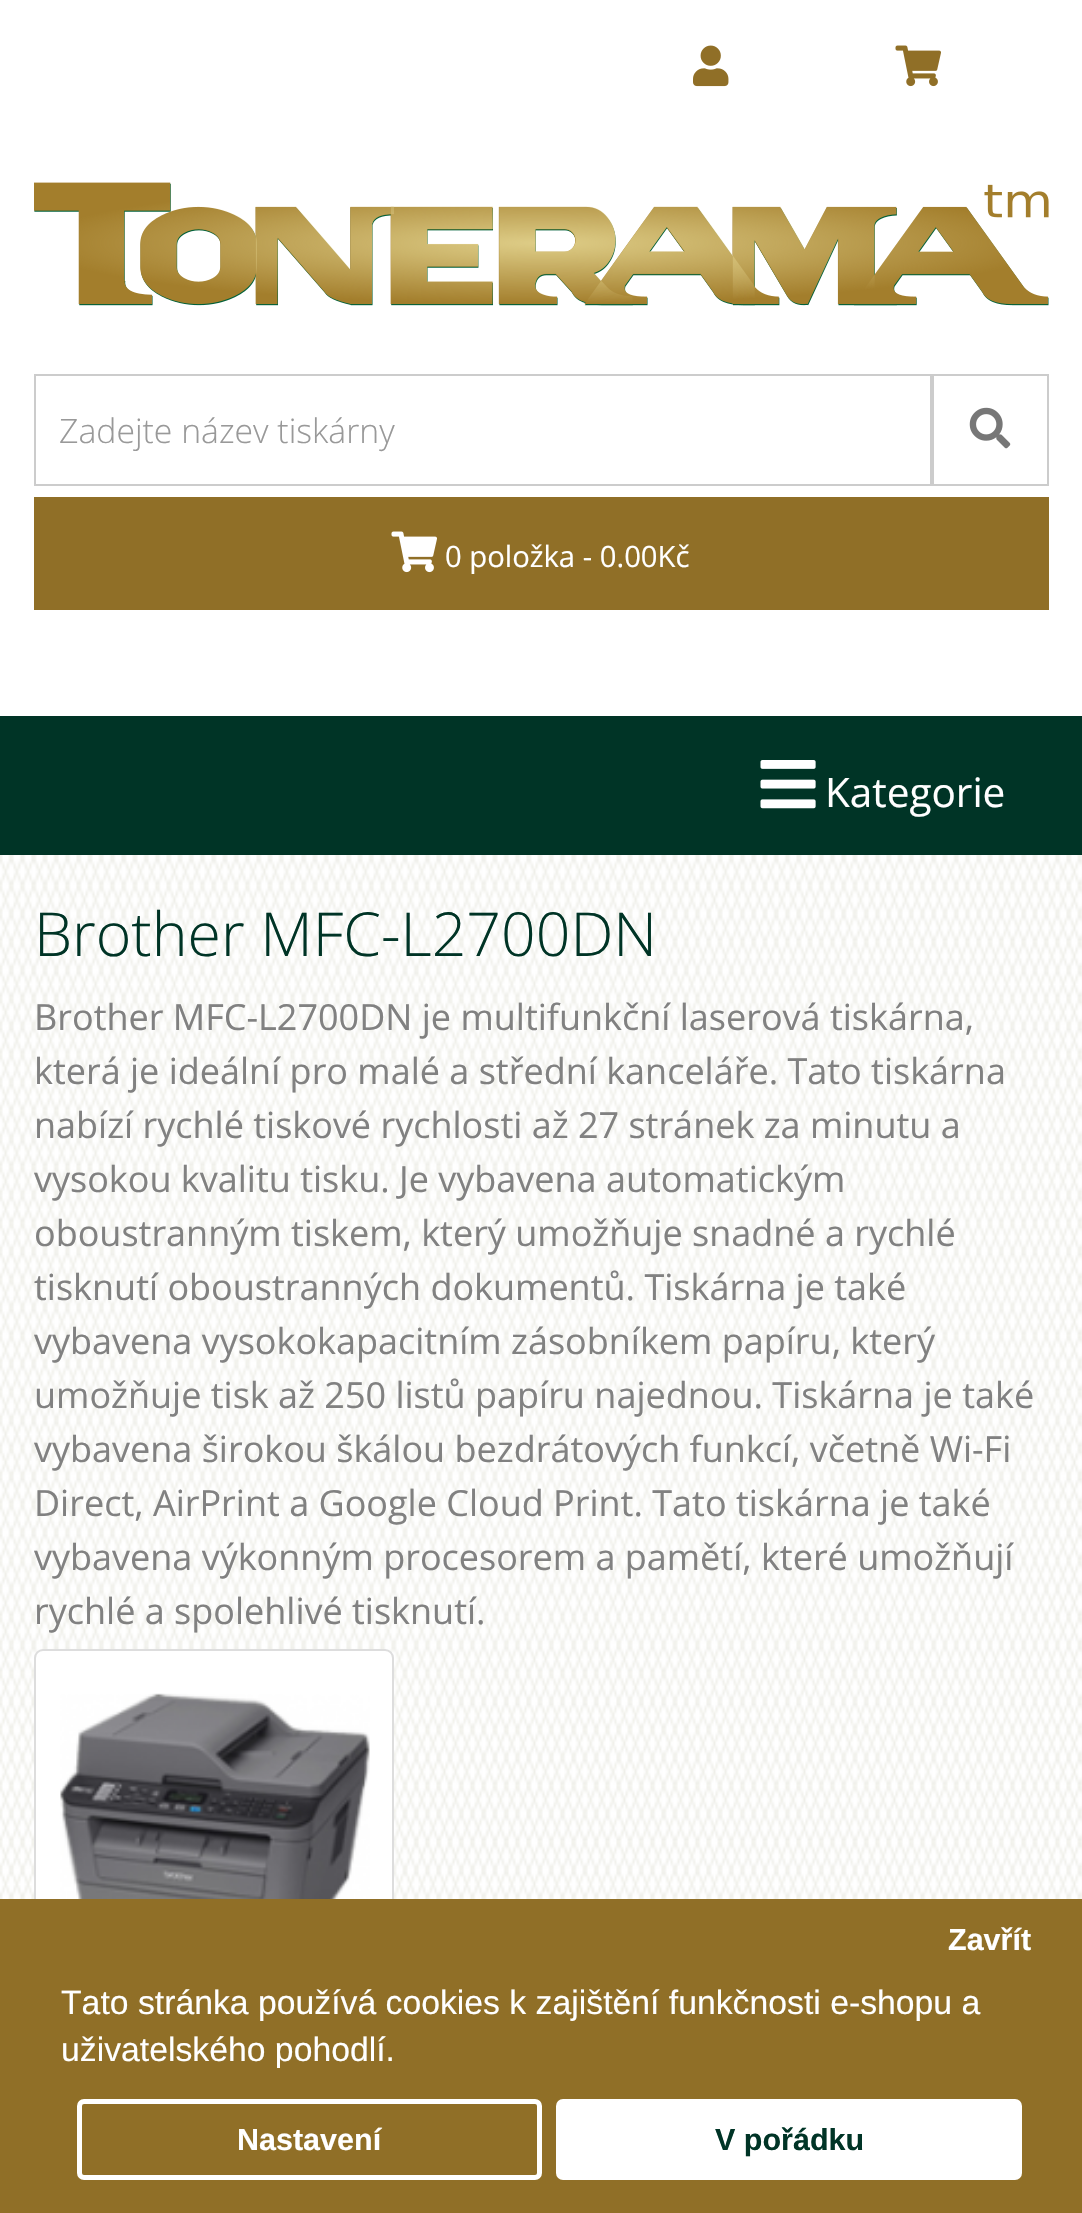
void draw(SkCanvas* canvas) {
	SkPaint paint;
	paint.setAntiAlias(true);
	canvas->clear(0xffffffff);
	canvas->drawImageRect(SkImages::DeferredFromEncodedData(SkData::MakeFromFileName("img1.png")), SkRect::MakeXYWH(0, 855, 1082, 1044), SkSamplingOptions());
	canvas->drawImageRect(SkImages::DeferredFromEncodedData(SkData::MakeFromFileName("img2.png")), SkRect::MakeXYWH(693, 45, 36, 42), SkSamplingOptions());
	canvas->drawImageRect(SkImages::DeferredFromEncodedData(SkData::MakeFromFileName("img3.png")), SkRect::MakeXYWH(895, 45, 46, 42), SkSamplingOptions());
	canvas->drawImageRect(SkImages::DeferredFromEncodedData(SkData::MakeFromFileName("img4.png")), SkRect::MakeXYWH(34, 182, 1015, 124), SkSamplingOptions());
	paint.setStroke(true);
	paint.setStrokeWidth(2);
	paint.setColor(0xffcccccc);
	canvas->drawRect(SkRect::MakeXYWH(35, 375, 896, 110), paint);
	SkFont f1(fontMgr->matchFamilyStyle("Open Sans", SkFontStyle(300, SkFontStyle::kNormal_Width, SkFontStyle::kUpright_Slant)), 33.75);
	f1.setSubpixel(true);
	paint.setStroke(false);
	paint.setColor(0xff999999);
	canvas->drawString("Zadejte název tiskárny", 59, 443, f1, paint);
	paint.setStroke(true);
	paint.setColor(0xffcccccc);
	canvas->drawRect(SkRect::MakeXYWH(933, 375, 115, 110), paint);
	canvas->drawImageRect(SkImages::DeferredFromEncodedData(SkData::MakeFromFileName("img5.png")), SkRect::MakeXYWH(969, 407, 42, 42), SkSamplingOptions());
	paint.setStroke(false);
	paint.setColor(0xff906f27);
	canvas->drawRect(SkRect::MakeXYWH(34, 497, 1015, 113), paint);
	canvas->drawImageRect(SkImages::DeferredFromEncodedData(SkData::MakeFromFileName("img6.png")), SkRect::MakeXYWH(391, 531, 46, 42), SkSamplingOptions());
	SkFont f2(fontMgr->matchFamilyStyle("Open Sans", SkFontStyle::Normal()), 29.25);
	f2.setSubpixel(true);
	paint.setColor(0xffffffff);
	canvas->drawString("0 položka - 0.00Kč", 445, 567, f2, paint);
	paint.setColor(0xff003426);
	canvas->drawRect(SkRect::MakeXYWH(0, 716, 1082, 139), paint);
	canvas->drawImageRect(SkImages::DeferredFromEncodedData(SkData::MakeFromFileName("img7.png")), SkRect::MakeXYWH(760, 760, 56, 49), SkSamplingOptions());
	SkFont f3(fontMgr->matchFamilyStyle("Open Sans", SkFontStyle::Normal()), 40.5);
	f3.setSubpixel(true);
	paint.setColor(0xffffffff);
	canvas->drawString("Kategorie", 825, 807, f3, paint);
	SkFont f4(fontMgr->matchFamilyStyle("Open Sans", SkFontStyle(300, SkFontStyle::kNormal_Width, SkFontStyle::kUpright_Slant)), 60.75);
	f4.setSubpixel(true);
	paint.setColor(0xff003426);
	canvas->drawString("Brother MFC-L2700DN", 34, 956, f4, paint);
	SkFont f5(fontMgr->matchFamilyStyle("Open Sans", SkFontStyle::Normal()), 36);
	f5.setSubpixel(true);
	paint.setColor(0xff818181);
	canvas->drawString("Brother MFC-L2700DN je multifunkční laserová tiskárna,", 34, 1030, f5, paint);
	canvas->drawString("která je ideální pro malé a střední kanceláře. Tato tiskárna", 34, 1084, f5, paint);
	canvas->drawString("nabízí rychlé tiskové rychlosti až 27 stránek za minutu a", 34, 1138, f5, paint);
	canvas->drawString("vysokou kvalitu tisku. Je vybavena automatickým", 34, 1192, f5, paint);
	canvas->drawString("oboustranným tiskem, který umožňuje snadné a rychlé", 34, 1246, f5, paint);
	canvas->drawString("tisknutí oboustranných dokumentů. Tiskárna je také", 34, 1300, f5, paint);
	canvas->drawString("vybavena vysokokapacitním zásobníkem papíru, který", 34, 1354, f5, paint);
	canvas->drawString("umožňuje tisk až 250 listů papíru najednou. Tiskárna je také", 34, 1408, f5, paint);
	canvas->drawString("vybavena širokou škálou bezdrátových funkcí, včetně Wi-Fi", 34, 1462, f5, paint);
	canvas->drawString("Direct, AirPrint a Google Cloud Print. Tato tiskárna je také", 34, 1516, f5, paint);
	canvas->drawString("vybavena výkonným procesorem a pamětí, které umožňují", 34, 1570, f5, paint);
	canvas->drawString("rychlé a spolehlivé tisknutí.", 34, 1624, f5, paint);
	paint.setColor(0xffffffff);
	canvas->drawRoundRect(SkRect::MakeXYWH(35, 1650, 358, 358), 8, 8, paint);
	paint.setStroke(true);
	paint.setColor(0xffdddddd);
	canvas->drawRoundRect(SkRect::MakeXYWH(35, 1650, 358, 358), 8, 8, paint);
	canvas->drawImageRect(SkImages::DeferredFromEncodedData(SkData::MakeFromFileName("img8.png")), SkRect::MakeXYWH(60, 1693, 310, 206), SkSamplingOptions());
	paint.setStroke(false);
	paint.setColor(0xff906f27);
	canvas->drawRect(SkRect::MakeXYWH(0, 1899, 1082, 314), paint);
	SkFont f6(fontMgr->matchFamilyStyle("Liberation Sans", SkFontStyle::Bold()), 30.5);
	f6.setSubpixel(true);
	paint.setColor(0xffffffff);
	canvas->drawString("Zavřít", 948, 1950, f6, paint);
	paint.setStroke(true);
	paint.setStrokeWidth(5);
	canvas->drawRoundRect(SkRect::MakeXYWH(79.5, 2101.5, 460, 76), 4.5, 4.5, paint);
	paint.setStroke(false);
	canvas->drawString("Nastavení", 237, 2150, f6, paint);
	canvas->drawRoundRect(SkRect::MakeXYWH(556, 2099, 466, 81), 7, 7, paint);
	paint.setColor(0xff003426);
	canvas->drawString("V pořádku", 715, 2150, f6, paint);
	SkFont f7(fontMgr->matchFamilyStyle("Liberation Sans", SkFontStyle::Normal()), 33.75);
	f7.setSubpixel(true);
	paint.setColor(0xffffffff);
	canvas->drawString("Tato stránka používá cookies k zajištění funkčnosti e-shopu a", 61, 2014, f7, paint);
	canvas->drawString("uživatelského pohodlí.", 61, 2061, f7, paint);
}
